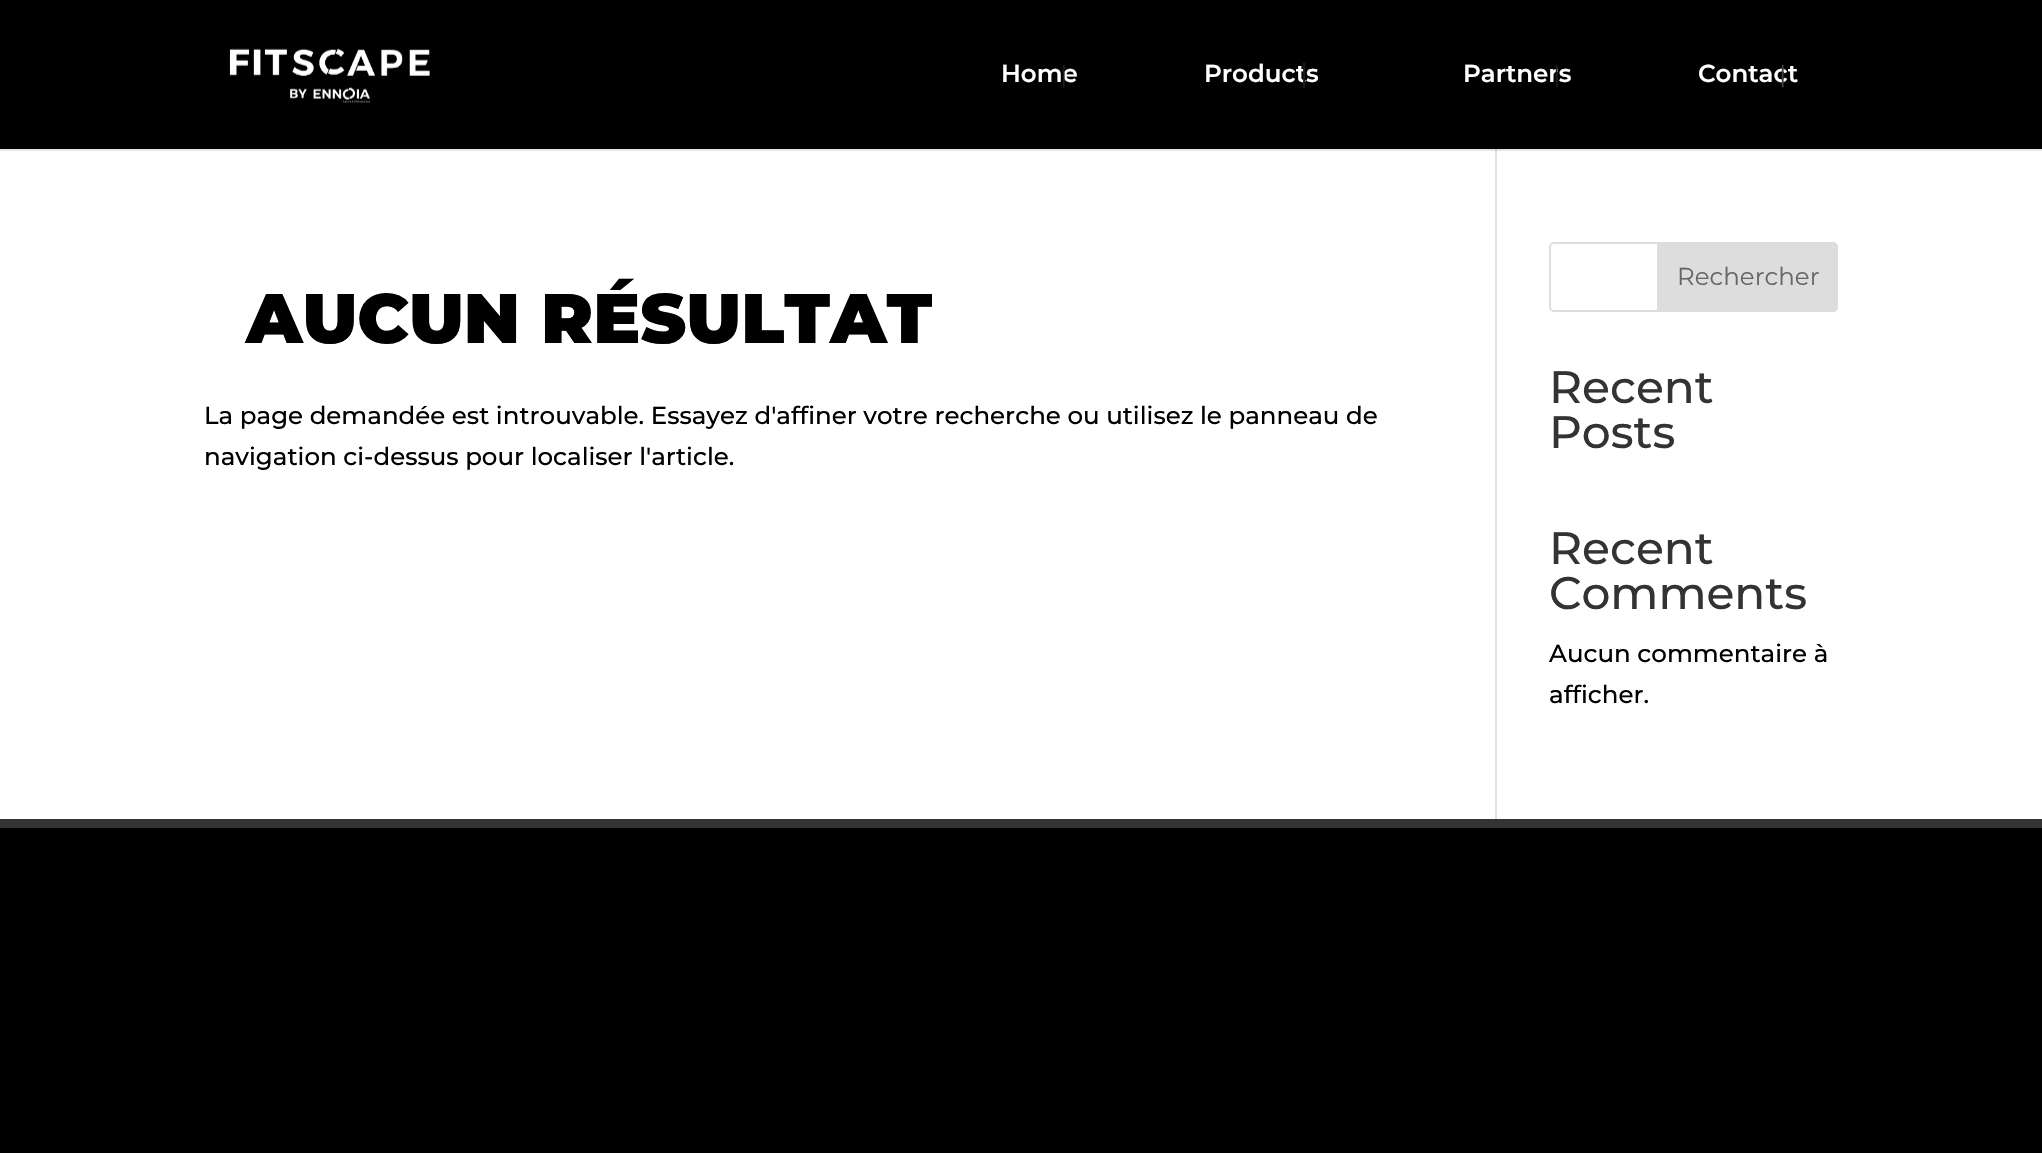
void draw(SkCanvas* canvas) {
	SkPaint paint;
	paint.setAntiAlias(true);
	auto svgPath = [&](const char* data, bool evenOdd = false) {
		SkPath result = *SkParsePath::FromSVGString(data);
		if (evenOdd) result.setFillType(SkPathFillType::kEvenOdd);
		return result;
	};
	canvas->clear(0xffffffff);
	paint.setColor(0xffe6e6e6);
	canvas->drawRect(SkRect::MakeXYWH(0, 149, 2042, 2), paint);
	paint.setColor(0xff000000);
	canvas->drawRect(SkRect::MakeXYWH(0, 0, 2042, 149), paint);
	canvas->drawImageRect(SkImages::DeferredFromEncodedData(SkData::MakeFromFileName("img1.png")), SkRect::MakeXYWH(229, 48, 201, 55), SkSamplingOptions());
	SkFont f1(fontMgr->matchFamilyStyle("Montserrat", SkFontStyle(600, SkFontStyle::kNormal_Width, SkFontStyle::kUpright_Slant)), 24.5);
	f1.setSubpixel(true);
	paint.setColor(0xffffffff);
	canvas->drawString("Home", 1001, 82, f1, paint);
	SkFont f2(fontMgr->matchFamilyStyle("Liberation Serif", SkFontStyle::Bold()), 24.5);
	f2.setSubpixel(true);
	paint.setColor(0xff1b1b1b);
	canvas->drawString("|", 1061, 82, f2, paint);
	paint.setColor(0xffffffff);
	canvas->drawString("Products", 1204, 82, f1, paint);
	SkFont f3(fontMgr->matchFamilyStyle("Liberation Serif", SkFontStyle::Bold()), 28);
	f3.setSubpixel(true);
	paint.setColor(0xff1b1b1b);
	canvas->drawString("|", 1301, 82, f3, paint);
	paint.setColor(0xffffffff);
	canvas->drawString("Partners", 1463, 82, f1, paint);
	paint.setColor(0xff1b1b1b);
	canvas->drawString("|", 1554, 82, f2, paint);
	paint.setColor(0xffffffff);
	canvas->drawString("Contact", 1698, 82, f1, paint);
	paint.setColor(0xff404040);
	canvas->drawString("|", 1780, 82, f2, paint);
	paint.setColor(0xffe2e2e2);
	canvas->drawRect(SkRect::MakeXYWH(1495, 151, 2, 668), paint);
	paint.setColor(0xffcbcbcb);
	canvas->drawRect(SkRect::MakeXYWH(1495, 149, 2, 2), paint);
	SkFont f4(fontMgr->matchFamilyStyle("Montserrat", SkFontStyle(900, SkFontStyle::kNormal_Width, SkFontStyle::kUpright_Slant)), 70);
	f4.setSubpixel(true);
	paint.setColor(0xff000000);
	canvas->drawString("AUCUN RÉSULTAT", 246, 343, f4, paint);
	SkFont f5(fontMgr->matchFamilyStyle("Montserrat", SkFontStyle(500, SkFontStyle::kNormal_Width, SkFontStyle::kUpright_Slant)), 24.5);
	f5.setSubpixel(true);
	canvas->drawString("La page demandée est introuvable. Essayez d'affiner votre recherche ou utilisez le panneau de", 204, 424, f5, paint);
	canvas->drawString("navigation ci-dessus pour localiser l'article.", 204, 465, f5, paint);
	paint.setStroke(true);
	paint.setStrokeWidth(2);
	paint.setColor(0xffdddddd);
	canvas->drawRoundRect(SkRect::MakeXYWH(1550, 243, 287, 68), 4, 4, paint);
	paint.setStroke(false);
	canvas->drawPath(svgPath("M1658 243H1833C1835 243 1837 245 1837 247V307C1837 309 1835 311 1833 311H1658Z"), paint);
	paint.setStroke(true);
	canvas->drawPath(svgPath("M1658 243H1833C1835 243 1837 245 1837 247V307C1837 309 1835 311 1833 311H1658Z"), paint);
	SkFont f6(fontMgr->matchFamilyStyle("Montserrat", SkFontStyle::Normal()), 24.5);
	f6.setSubpixel(true);
	paint.setStroke(false);
	paint.setColor(0xff666666);
	canvas->drawString("Rechercher", 1677, 285, f6, paint);
	SkFont f7(fontMgr->matchFamilyStyle("Montserrat", SkFontStyle(500, SkFontStyle::kNormal_Width, SkFontStyle::kUpright_Slant)), 45.5);
	f7.setSubpixel(true);
	paint.setColor(0xff333333);
	canvas->drawString("Recent", 1549, 403, f7, paint);
	canvas->drawString("Posts", 1549, 448, f7, paint);
	canvas->drawString("Recent", 1549, 564, f7, paint);
	canvas->drawString("Comments", 1549, 609, f7, paint);
	paint.setColor(0xff000000);
	canvas->drawString("Aucun commentaire à", 1549, 662, f5, paint);
	canvas->drawString("afficher.", 1549, 703, f5, paint);
	canvas->drawRect(SkRect::MakeXYWH(0, 828, 2042, 325), paint);
	paint.setColor(0xff333333);
	canvas->drawRect(SkRect::MakeXYWH(0, 819, 2042, 9), paint);
}
